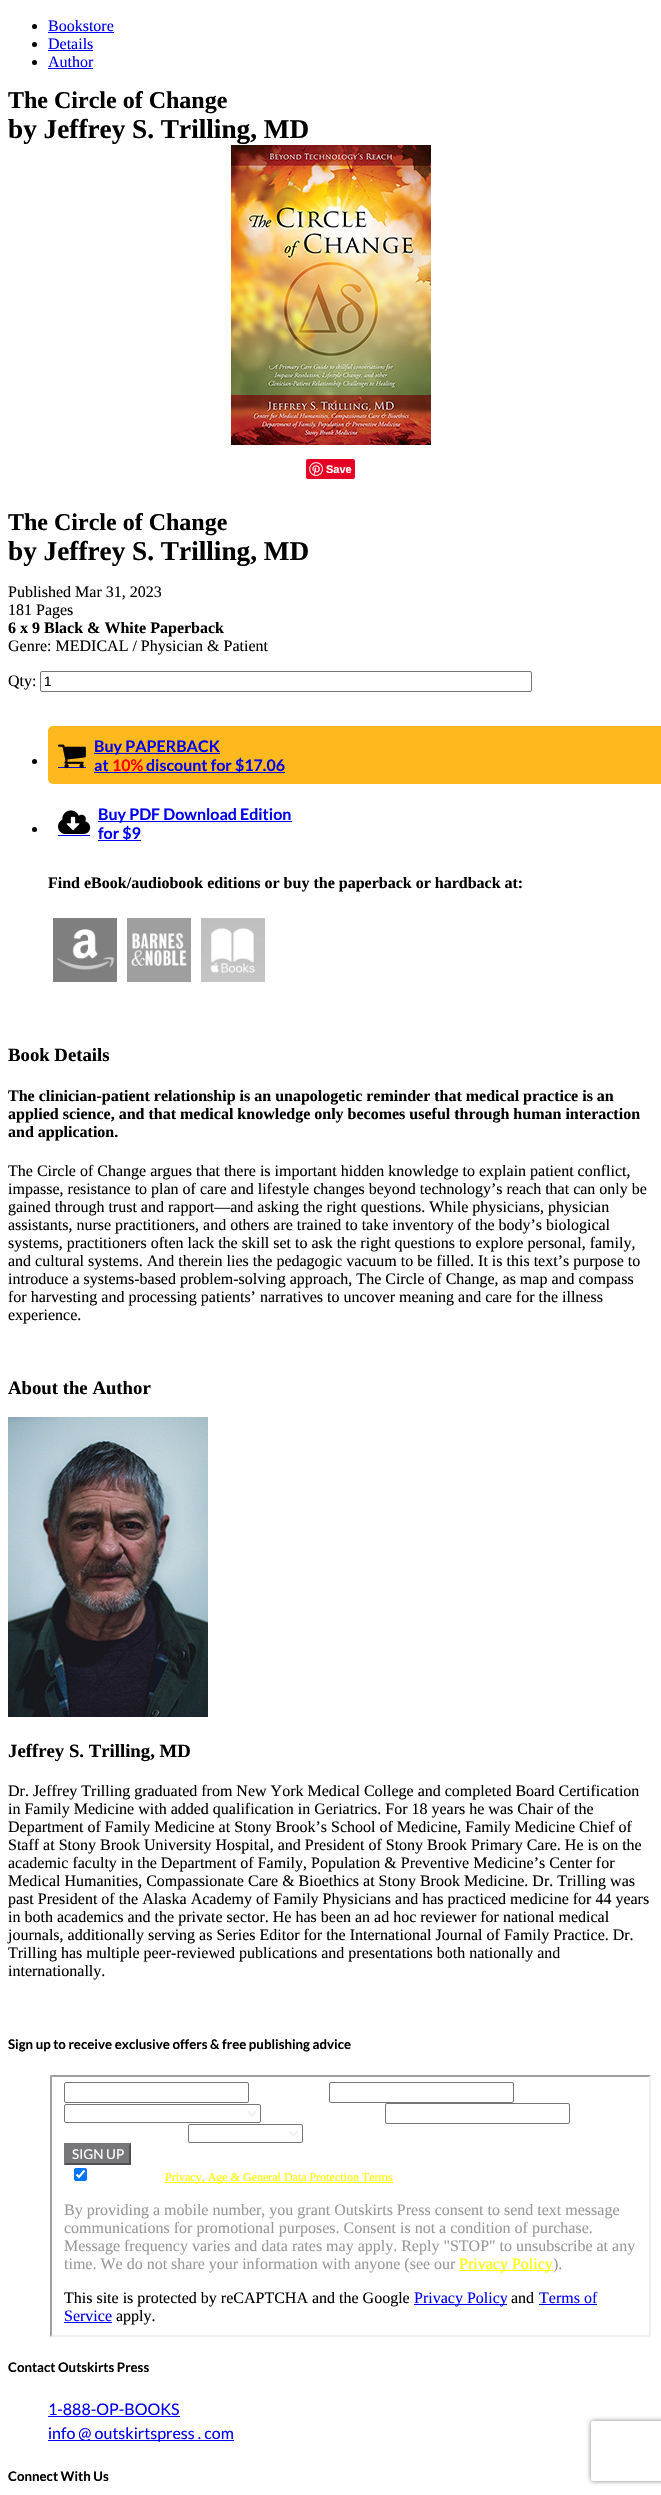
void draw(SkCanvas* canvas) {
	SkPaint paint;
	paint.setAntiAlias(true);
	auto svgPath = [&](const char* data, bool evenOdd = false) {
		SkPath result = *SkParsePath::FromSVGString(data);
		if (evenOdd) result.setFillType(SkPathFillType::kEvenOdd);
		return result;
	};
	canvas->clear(0xffffffff);
	paint.setColor(0xff000000);
	canvas->drawCircle(34.5, 26.5, 2.5, paint);
	SkFont f1(fontMgr->matchFamilyStyle("Liberation Serif", SkFontStyle::Normal()), 16);
	f1.setSubpixel(true);
	paint.setColor(0xff0000ee);
	canvas->drawString("Bookstore", 48, 31, f1, paint);
	canvas->drawRect(SkRect::MakeXYWH(48, 32, 66, 1), paint);
	paint.setColor(0xff000000);
	canvas->drawCircle(34.5, 44.5, 2.5, paint);
	paint.setColor(0xff0000ee);
	canvas->drawString("Details", 48, 49, f1, paint);
	canvas->drawRect(SkRect::MakeXYWH(48, 50, 45, 1), paint);
	paint.setColor(0xff000000);
	canvas->drawCircle(34.5, 62.5, 2.5, paint);
	paint.setColor(0xff0000ee);
	canvas->drawString("Author", 48, 67, f1, paint);
	canvas->drawRect(SkRect::MakeXYWH(48, 68, 45, 1), paint);
	SkFont f2(fontMgr->matchFamilyStyle("Liberation Serif", SkFontStyle::Bold()), 24);
	f2.setSubpixel(true);
	paint.setColor(0xff000000);
	canvas->drawString("The Circle of Change", 8, 108, f2, paint);
	SkFont f3(fontMgr->matchFamilyStyle("Liberation Serif", SkFontStyle::Bold()), 27.25);
	f3.setSubpixel(true);
	canvas->drawString("by Jeffrey S. Trilling, MD", 8, 138, f3, paint);
	canvas->drawImageRect(SkImages::DeferredFromEncodedData(SkData::MakeFromFileName("img1.png")), SkRect::MakeXYWH(231, 145, 200, 300), SkSamplingOptions());
	paint.setColor(0xffe60023);
	canvas->drawRoundRect(SkRect::MakeXYWH(306, 459, 49, 20), 2, 2, paint);
	canvas->drawImageRect(SkImages::DeferredFromEncodedData(SkData::MakeFromFileName("img2.png")), SkRect::MakeXYWH(309, 462, 14, 14), SkSamplingOptions());
	SkFont f4(fontMgr->matchFamilyStyle("Liberation Sans", SkFontStyle::Bold()), 11);
	f4.setSubpixel(true);
	paint.setColor(0xffffffff);
	canvas->drawString("Save", 326, 473, f4, paint);
	paint.setColor(0xff000000);
	canvas->drawString("The Circle of Change", 8, 530, f2, paint);
	canvas->drawString("by Jeffrey S. Trilling, MD", 8, 560, f3, paint);
	canvas->drawString("Published Mar 31, 2023", 8, 597, f1, paint);
	canvas->drawString("181 Pages", 8, 615, f1, paint);
	SkFont f5(fontMgr->matchFamilyStyle("Liberation Serif", SkFontStyle::Bold()), 16);
	f5.setSubpixel(true);
	canvas->drawString("6 x 9 Black & White Paperback", 8, 633, f5, paint);
	canvas->drawString("Genre: MEDICAL / Physician & Patient", 8, 651, f1, paint);
	canvas->drawString("Qty:", 8, 686, f1, paint);
	paint.setStroke(true);
	paint.setStrokeWidth(1);
	paint.setColor(0xff767676);
	canvas->drawRoundRect(SkRect::MakeXYWH(40.5, 671.5, 491, 20), 1.5, 1.5, paint);
	SkFont f6(fontMgr->matchFamilyStyle("Liberation Sans", SkFontStyle::Normal()), 13.5);
	f6.setSubpixel(true);
	paint.setStroke(false);
	paint.setColor(0xff000000);
	canvas->drawString("1", 44, 686, f6, paint);
	canvas->drawCircle(34.5, 761.5, 2.5, paint);
	paint.setColor(0xffffb81d);
	canvas->drawRoundRect(SkRect::MakeXYWH(48, 726, 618, 58), 5, 5, paint);
	paint.setColor(0xff0000ee);
	canvas->drawRect(SkRect::MakeXYWH(58, 767, 28, 1), paint);
	canvas->drawImageRect(SkImages::DeferredFromEncodedData(SkData::MakeFromFileName("img3.png")), SkRect::MakeXYWH(58, 744, 28, 25), SkSamplingOptions());
	canvas->drawRect(SkRect::MakeXYWH(94, 753, 126, 1), paint);
	SkFont f7(fontMgr->matchFamilyStyle("Lato", SkFontStyle::Bold()), 16);
	f7.setSubpixel(true);
	canvas->drawString("Buy PAPERBACK", 94, 752, f7, paint);
	canvas->drawString("at", 94, 771, f7, paint);
	canvas->drawRect(SkRect::MakeXYWH(94, 772, 191, 1), paint);
	paint.setColor(0xffff0000);
	canvas->drawString("10%", 112, 771, f7, paint);
	paint.setColor(0xff0000ee);
	canvas->drawString("discount for $17.06", 146, 771, f7, paint);
	paint.setColor(0xff000000);
	canvas->drawCircle(34.5, 829.5, 2.5, paint);
	canvas->drawImageRect(SkImages::DeferredFromEncodedData(SkData::MakeFromFileName("img4.png")), SkRect::MakeXYWH(58, 810, 33, 24), SkSamplingOptions());
	paint.setColor(0xff0000ee);
	canvas->drawRect(SkRect::MakeXYWH(58, 835, 32, 1), paint);
	canvas->drawRect(SkRect::MakeXYWH(98, 821, 194, 1), paint);
	canvas->drawString("Buy PDF Download Edition", 98, 820, f7, paint);
	canvas->drawRect(SkRect::MakeXYWH(98, 840, 43, 1), paint);
	canvas->drawString("for $9", 98, 839, f7, paint);
	paint.setColor(0xff000000);
	canvas->drawString("Find eBook/audiobook editions or buy the paperback or hardback at:", 48, 888, f5, paint);
	canvas->drawImageRect(SkImages::DeferredFromEncodedData(SkData::MakeFromFileName("img5.png")), SkRect::MakeXYWH(53, 918, 64, 64), SkSamplingOptions());
	canvas->drawImageRect(SkImages::DeferredFromEncodedData(SkData::MakeFromFileName("img6.png")), SkRect::MakeXYWH(127, 918, 64, 64), SkSamplingOptions());
	canvas->drawImageRect(SkImages::DeferredFromEncodedData(SkData::MakeFromFileName("img7.png")), SkRect::MakeXYWH(201, 918, 64, 64), SkSamplingOptions());
	SkFont f8(fontMgr->matchFamilyStyle("Liberation Serif", SkFontStyle::Bold()), 18.75);
	f8.setSubpixel(true);
	canvas->drawString("Book Details", 8, 1061, f8, paint);
	canvas->drawString("The clinician-patient relationship is an unapologetic reminder that medical practice is an", 8, 1101, f5, paint);
	canvas->drawString("applied science, and that medical knowledge only becomes useful through human interaction", 8, 1119, f5, paint);
	canvas->drawString("and application.", 8, 1137, f5, paint);
	canvas->drawString("The Circle of Change argues that there is important hidden knowledge to explain patient conflict,", 8, 1176, f1, paint);
	canvas->drawString("impasse, resistance to plan of care and lifestyle changes beyond technology’s reach that can only be", 8, 1194, f1, paint);
	canvas->drawString("gained through trust and rapport—and asking the right questions. While physicians, physician", 8, 1212, f1, paint);
	canvas->drawString("assistants, nurse practitioners, and others are trained to take inventory of the body’s biological", 8, 1230, f1, paint);
	canvas->drawString("systems, practitioners often lack the skill set to ask the right questions to explore personal, family,", 8, 1248, f1, paint);
	canvas->drawString("and cultural systems. And therein lies the pedagogic vacuum to be filled. It is this text’s purpose to", 8, 1266, f1, paint);
	canvas->drawString("introduce a systems-based problem-solving approach, The Circle of Change, as map and compass", 8, 1284, f1, paint);
	canvas->drawString("for harvesting and processing patients’ narratives to uncover meaning and care for the illness", 8, 1302, f1, paint);
	canvas->drawString("experience.", 8, 1320, f1, paint);
	canvas->drawString("About the Author", 8, 1394, f8, paint);
	canvas->drawImageRect(SkImages::DeferredFromEncodedData(SkData::MakeFromFileName("img8.png")), SkRect::MakeXYWH(8, 1417, 200, 300), SkSamplingOptions());
	canvas->drawString("Jeffrey S. Trilling, MD", 8, 1757, f8, paint);
	canvas->drawString("Dr. Jeffrey Trilling graduated from New York Medical College and completed Board Certification", 8, 1796, f1, paint);
	canvas->drawString("in Family Medicine with added qualification in Geriatrics. For 18 years he was Chair of the", 8, 1814, f1, paint);
	canvas->drawString("Department of Family Medicine at Stony Brook’s School of Medicine, Family Medicine Chief of", 8, 1832, f1, paint);
	canvas->drawString("Staff at Stony Brook University Hospital, and President of Stony Brook Primary Care. He is on the", 8, 1850, f1, paint);
	canvas->drawString("academic faculty in the Department of Family, Population & Preventive Medicine’s Center for", 8, 1868, f1, paint);
	canvas->drawString("Medical Humanities, Compassionate Care & Bioethics at Stony Brook Medicine. Dr. Trilling was", 8, 1886, f1, paint);
	canvas->drawString("past President of the Alaska Academy of Family Physicians and has practiced medicine for 44 years", 8, 1904, f1, paint);
	canvas->drawString("in both academics and the private sector. He has been an ad hoc reviewer for national medical", 8, 1922, f1, paint);
	canvas->drawString("journals, additionally serving as Series Editor for the International Journal of Family Practice. Dr.", 8, 1940, f1, paint);
	canvas->drawString("Trilling has multiple peer-reviewed publications and presentations both nationally and", 8, 1958, f1, paint);
	canvas->drawString("internationally.", 8, 1976, f1, paint);
	SkFont f9(fontMgr->matchFamilyStyle("Lato", SkFontStyle::Bold()), 13.25);
	f9.setSubpixel(true);
	canvas->drawString("Sign up to receive exclusive offers & free publishing advice", 8, 2049, f9, paint);
	paint.setColor(0xff9f9f9f);
	canvas->drawPath(svgPath("M50 2075H651L649 2077H52Z"), paint);
	paint.setColor(0xffefefef);
	canvas->drawPath(svgPath("M651 2075V2337L649 2335V2077Z"), paint);
	canvas->drawPath(svgPath("M651 2337H50L52 2335H649Z"), paint);
	paint.setColor(0xff9f9f9f);
	canvas->drawPath(svgPath("M50 2337V2075L52 2077V2335Z"), paint);
	paint.setStroke(true);
	paint.setColor(0xff767676);
	canvas->drawRoundRect(SkRect::MakeXYWH(64.5, 2082.5, 184, 20), 1.5, 1.5, paint);
	canvas->drawRoundRect(SkRect::MakeXYWH(329.5, 2082.5, 184, 20), 1.5, 1.5, paint);
	canvas->drawRoundRect(SkRect::MakeXYWH(64.5, 2104.5, 196, 18), 1.5, 1.5, paint);
	paint.setStrokeWidth(2);
	paint.setColor(0xfff0f0f0);
	canvas->drawPath(svgPath("M248 2111.5L252 2115.5L256 2111.5"), paint);
	paint.setStrokeWidth(1);
	paint.setColor(0xff767676);
	canvas->drawRoundRect(SkRect::MakeXYWH(385.5, 2103.5, 184, 20), 1.5, 1.5, paint);
	canvas->drawRoundRect(SkRect::MakeXYWH(188.5, 2124.5, 114, 18), 1.5, 1.5, paint);
	paint.setStrokeWidth(2);
	paint.setColor(0xfff0f0f0);
	canvas->drawPath(svgPath("M289.5 2131.5L293.5 2135.5L297.5 2131.5"), paint);
	paint.setStroke(false);
	paint.setColor(0xff777779);
	canvas->drawRect(SkRect::MakeXYWH(64, 2143, 67, 22), paint);
	paint.setColor(0xff4f4f51);
	canvas->drawPath(svgPath("M131 2143V2165L129 2163V2145Z"), paint);
	canvas->drawPath(svgPath("M131 2165H64L66 2163H129Z"), paint);
	paint.setColor(0xff777779);
	canvas->drawPath(svgPath("M64 2165V2143L66 2145V2163Z"), paint);
	SkFont f10(fontMgr->matchFamilyStyle("Lato", SkFontStyle::Normal()), 13.5);
	f10.setSubpixel(true);
	paint.setColor(0xffffffff);
	canvas->drawString("SIGN UP", 72, 2159, f10, paint);
	paint.setColor(0xff0075ff);
	canvas->drawRoundRect(SkRect::MakeXYWH(74, 2168, 13, 13), 2, 2, paint);
	paint.setStroke(true);
	paint.setStrokeWidth(2.1);
	paint.setColor(0xffffffff);
	canvas->drawPath(svgPath("M76.5 2174.5L79 2177L84.5 2170.5"), paint);
	paint.setStroke(false);
	paint.setColor(0xffffff00);
	canvas->drawRect(SkRect::MakeXYWH(165, 2182, 228, 1), paint);
	SkFont f11(fontMgr->matchFamilyStyle("Liberation Serif", SkFontStyle::Normal()), 12);
	f11.setSubpixel(true);
	canvas->drawString("Privacy, Age & General Data Protection Terms", 165, 2181, f11, paint);
	paint.setColor(0xff999999);
	canvas->drawString("By providing a mobile number, you grant Outskirts Press consent to send text message", 64, 2215, f1, paint);
	canvas->drawString("communications for promotional purposes. Consent is not a condition of purchase.", 64, 2233, f1, paint);
	canvas->drawString("Message frequency varies and data rates may apply. Reply \"STOP\" to unsubscribe at any", 64, 2251, f1, paint);
	canvas->drawString("time. We do not share your information with anyone (see our", 64, 2269, f1, paint);
	paint.setColor(0xffffff00);
	canvas->drawRect(SkRect::MakeXYWH(459, 2270, 94, 1), paint);
	canvas->drawString("Privacy Policy", 459, 2269, f1, paint);
	paint.setColor(0xff999999);
	canvas->drawString(").", 553, 2269, f1, paint);
	paint.setColor(0xff000000);
	canvas->drawString("This site is protected by reCAPTCHA and the Google", 64, 2303, f1, paint);
	paint.setColor(0xff0000ee);
	canvas->drawRect(SkRect::MakeXYWH(414, 2304, 93, 1), paint);
	canvas->drawString("Privacy Policy", 414, 2303, f1, paint);
	paint.setColor(0xff000000);
	canvas->drawString("and", 511, 2303, f1, paint);
	paint.setColor(0xff0000ee);
	canvas->drawString("Terms of", 539, 2303, f1, paint);
	canvas->drawRect(SkRect::MakeXYWH(539, 2304, 58, 1), paint);
	canvas->drawString("Service", 64, 2321, f1, paint);
	canvas->drawRect(SkRect::MakeXYWH(64, 2322, 48, 1), paint);
	paint.setColor(0xff000000);
	canvas->drawString("apply.", 116, 2321, f1, paint);
	canvas->drawString("Contact Outskirts Press", 8, 2372, f9, paint);
	SkFont f12(fontMgr->matchFamilyStyle("Lato", SkFontStyle::Normal()), 16);
	f12.setSubpixel(true);
	paint.setColor(0xff0000ee);
	canvas->drawString("1-888-OP-BOOKS", 48, 2415, f12, paint);
	canvas->drawRect(SkRect::MakeXYWH(48, 2416, 132, 1), paint);
	canvas->drawRect(SkRect::MakeXYWH(48, 2440, 186, 1), paint);
	canvas->drawString("info @ outskirtspress . com", 48, 2439, f12, paint);
	paint.setColor(0xff000000);
	canvas->drawString("Connect With Us", 8, 2481, f9, paint);
	canvas->save();
	canvas->clipPath(svgPath("M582 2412H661V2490H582ZM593 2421H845C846 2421 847 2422 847 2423V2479C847 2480 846 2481 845 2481H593C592 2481 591 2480 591 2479V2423C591 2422 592 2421 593 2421Z", true), true);
	paint.setColor(0xff808080);
	paint.setMaskFilter(SkMaskFilter::MakeBlur(kNormal_SkBlurStyle, 2.5));
	canvas->drawRoundRect(SkRect::MakeXYWH(591, 2421, 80, 60), 2, 2, paint);
	paint.setMaskFilter(nullptr);
	canvas->restore();
}
